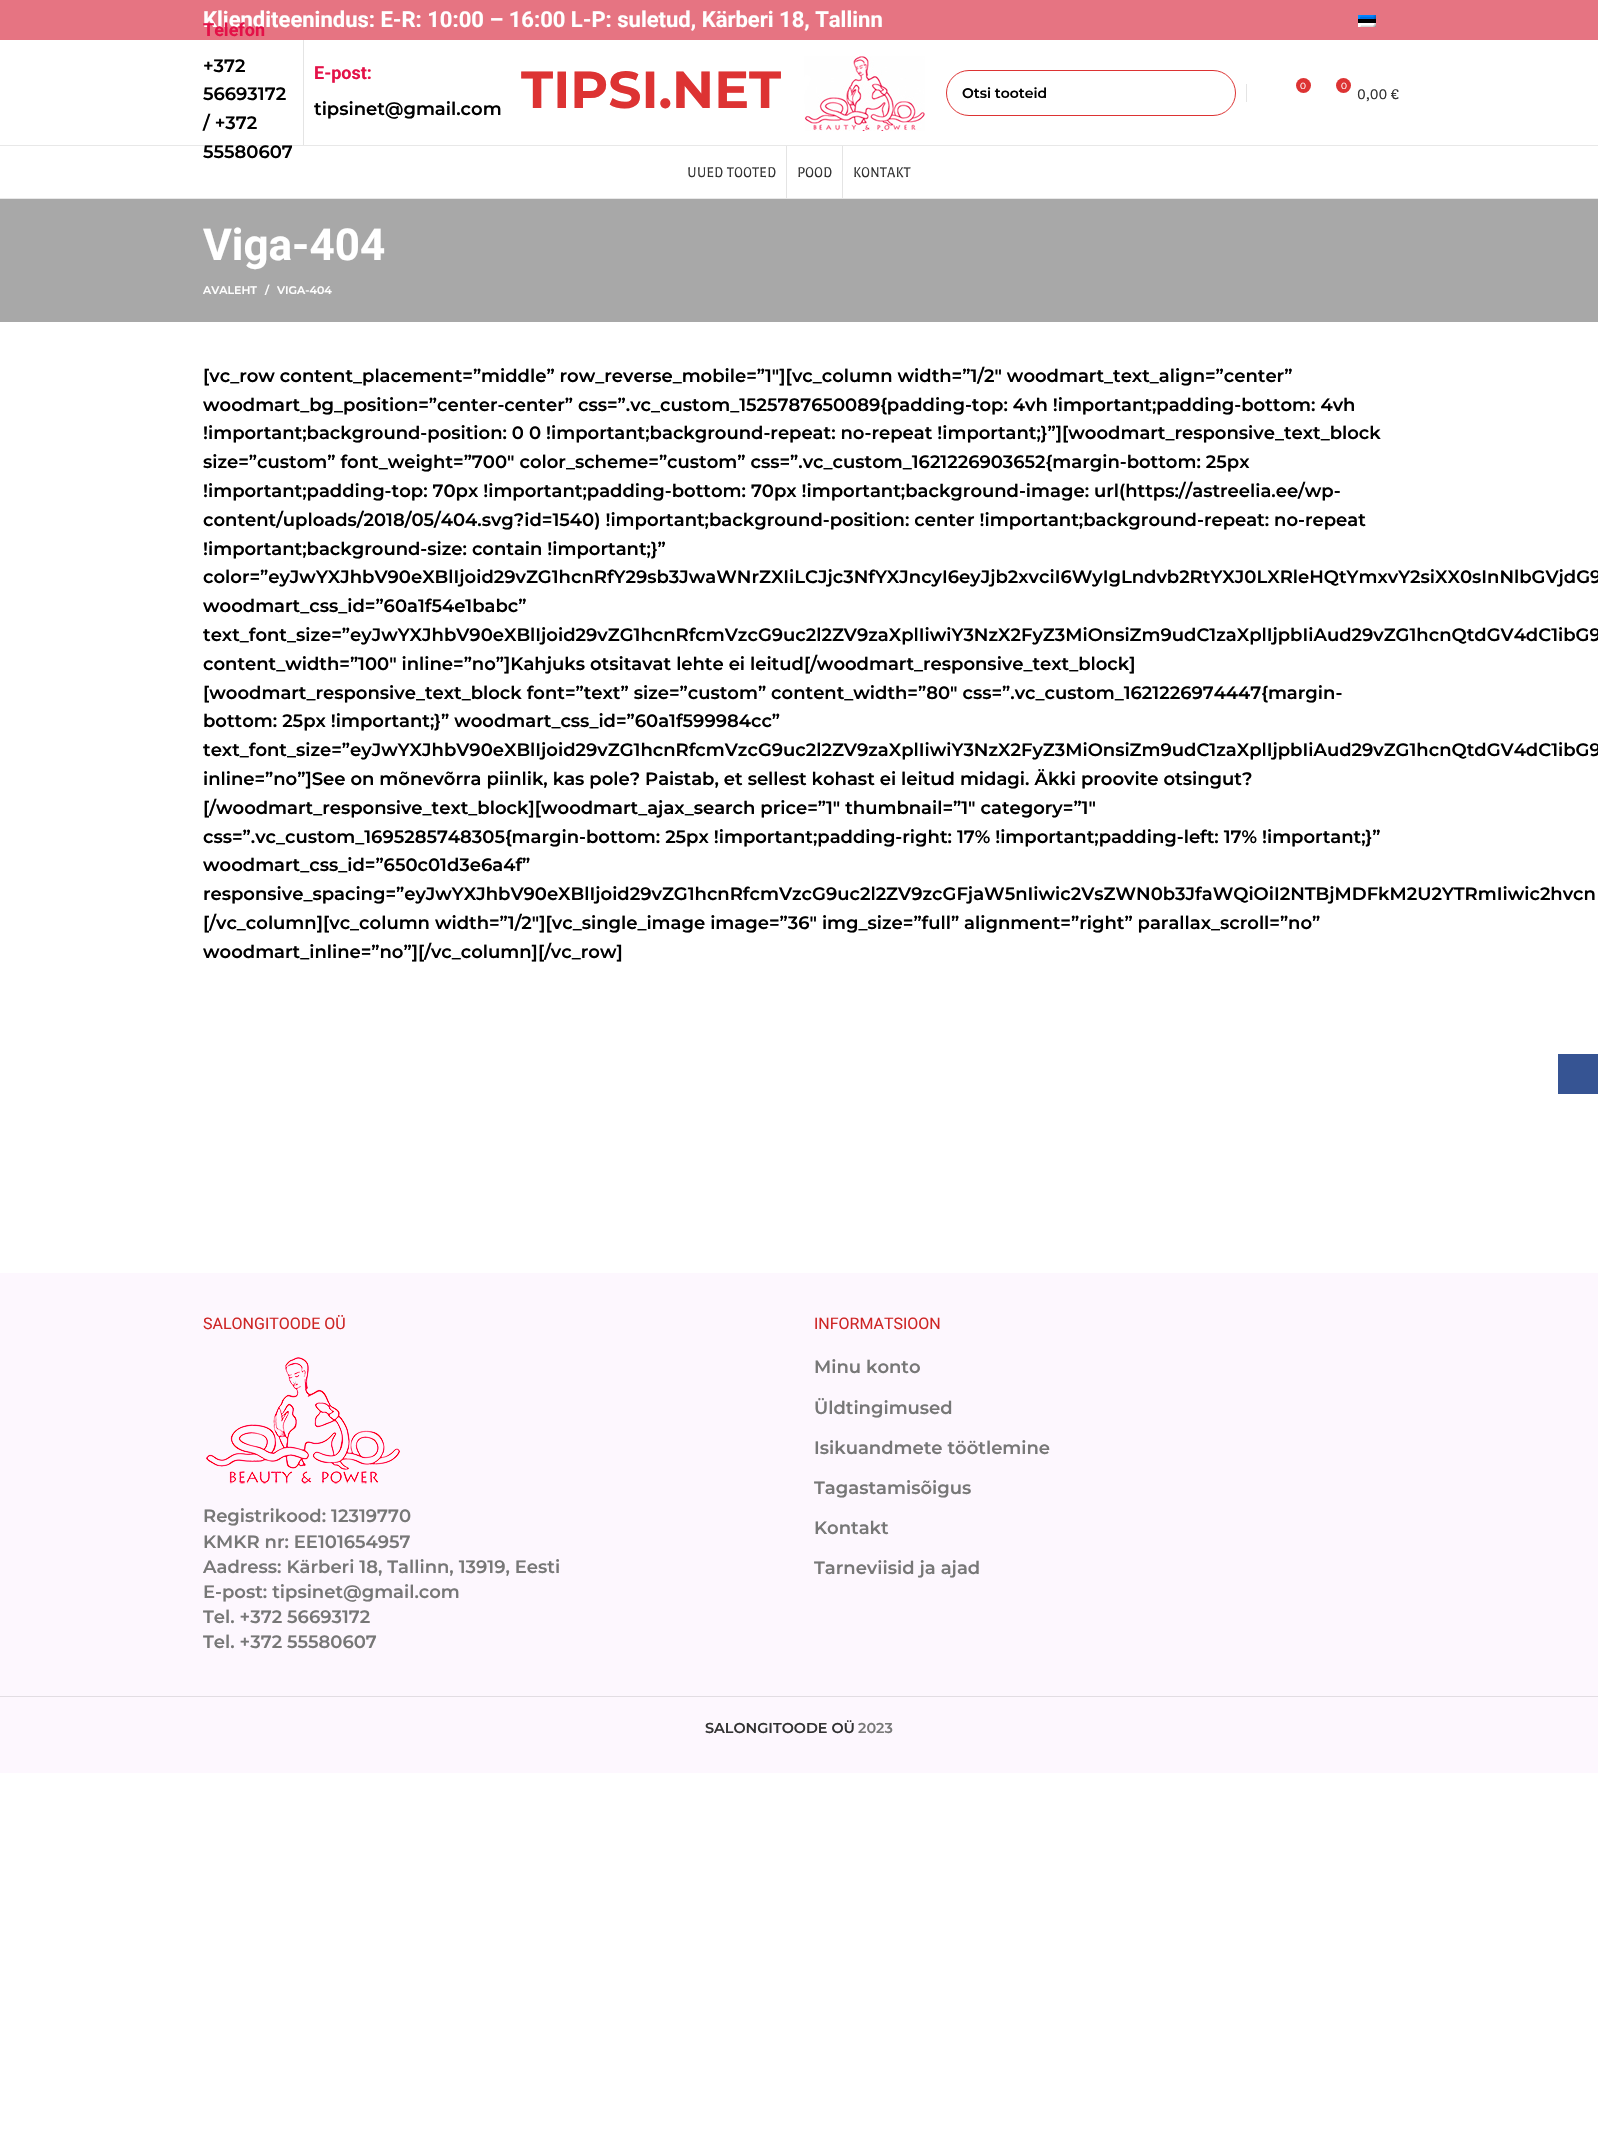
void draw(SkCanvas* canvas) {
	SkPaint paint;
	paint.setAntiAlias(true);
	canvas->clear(0xffffffff);
	paint.setColor(0xffe67482);
	canvas->drawRect(SkRect::MakeXYWH(0, 0, 1598, 40), paint);
	SkFont f1(fontMgr->matchFamilyStyle("Roboto", SkFontStyle::Bold()), 22);
	f1.setSubpixel(true);
	paint.setColor(0xffffffff);
	canvas->drawString("Klienditeenindus: E-R: 10:00 – 16:00 L-P: suletud, Kärberi 18, Tallinn", 203, 27, f1, paint);
	canvas->drawImageRect(SkImages::DeferredFromEncodedData(SkData::MakeFromFileName("img1.png")), SkRect::MakeXYWH(1358, 15, 18, 12), SkSamplingOptions());
	paint.setColor(0xffe8e8e8);
	canvas->drawRect(SkRect::MakeXYWH(0, 145, 1598, 1), paint);
	SkFont f2(fontMgr->matchFamilyStyle("Roboto", SkFontStyle::Bold()), 18);
	f2.setSubpixel(true);
	paint.setColor(0xffe41148);
	canvas->drawString("Telefon", 203, 36, f2, paint);
	SkFont f3(fontMgr->matchFamilyStyle("Montserrat", SkFontStyle(600, SkFontStyle::kNormal_Width, SkFontStyle::kUpright_Slant)), 18);
	f3.setSubpixel(true);
	paint.setColor(0xff000000);
	canvas->drawString("+372", 203, 72, f3, paint);
	canvas->drawString("56693172", 203, 100, f3, paint);
	canvas->drawString("/ +372", 203, 129, f3, paint);
	canvas->drawString("55580607", 203, 158, f3, paint);
	paint.setColor(0xffe4e4e4);
	canvas->drawRect(SkRect::MakeXYWH(303, 40, 1, 105), paint);
	paint.setColor(0xffe41148);
	canvas->drawString("E-post:", 314, 79, f2, paint);
	paint.setColor(0xff000000);
	canvas->drawString("tipsinet@gmail.com", 314, 115, f3, paint);
	SkFont f4(fontMgr->matchFamilyStyle("Montserrat", SkFontStyle::Bold()), 52);
	f4.setSubpixel(true);
	paint.setColor(0xffdd3333);
	canvas->drawString("TIPSI.NET", 521, 108, f4, paint);
	canvas->drawImageRect(SkImages::DeferredFromEncodedData(SkData::MakeFromFileName("img2.png")), SkRect::MakeXYWH(804, 56, 121, 75), SkSamplingOptions());
	paint.setStroke(true);
	paint.setStrokeWidth(1);
	canvas->drawRoundRect(SkRect::MakeXYWH(946.5, 70.5, 289, 45), 22.5, 22.5, paint);
	SkFont f5(fontMgr->matchFamilyStyle("Montserrat", SkFontStyle(600, SkFontStyle::kNormal_Width, SkFontStyle::kUpright_Slant)), 14);
	f5.setSubpixel(true);
	paint.setStroke(false);
	paint.setColor(0xff000000);
	canvas->drawString("Otsi tooteid", 962, 98, f5, paint);
	paint.setColor(0xffe4e4e4);
	canvas->drawRect(SkRect::MakeXYWH(1246, 84, 1, 18), paint);
	paint.setColor(0xffdd3333);
	canvas->drawCircle(1303.5, 85.5, 7.5, paint);
	SkFont f6(fontMgr->matchFamilyStyle("Montserrat", SkFontStyle::Normal()), 9);
	f6.setSubpixel(true);
	paint.setColor(0xffffffff);
	canvas->drawString("0", 1300, 89, f6, paint);
	paint.setColor(0xffdd3333);
	canvas->drawCircle(1343.5, 85.5, 7.5, paint);
	paint.setColor(0xffffffff);
	canvas->drawString("0", 1341, 89, f6, paint);
	SkFont f7(fontMgr->matchFamilyStyle("Port Lligat Sans", SkFontStyle::Normal()), 15);
	f7.setSubpixel(true);
	paint.setColor(0xff333333);
	canvas->drawString("0,00 €", 1357, 99, f7, paint);
	paint.setColor(0xffe8e8e8);
	canvas->drawRect(SkRect::MakeXYWH(0, 198, 1598, 1), paint);
	paint.setColor(0xff333333);
	canvas->drawString("UUED TOOTED", 687, 177, f7, paint);
	paint.setColor(0xffe4e4e4);
	canvas->drawRect(SkRect::MakeXYWH(786, 146, 1, 52), paint);
	paint.setColor(0xff333333);
	canvas->drawString("POOD", 797, 177, f7, paint);
	paint.setColor(0xffe4e4e4);
	canvas->drawRect(SkRect::MakeXYWH(842, 146, 1, 52), paint);
	paint.setColor(0xff333333);
	canvas->drawString("KONTAKT", 853, 177, f7, paint);
	paint.setColor(0xffa8a8a8);
	canvas->drawRect(SkRect::MakeXYWH(0, 199, 1598, 123), paint);
	SkFont f8(fontMgr->matchFamilyStyle("Roboto", SkFontStyle::Bold()), 44);
	f8.setSubpixel(true);
	paint.setColor(0xffffffff);
	canvas->drawString("Viga-404", 203, 260, f8, paint);
	SkFont f9(fontMgr->matchFamilyStyle("Montserrat", SkFontStyle(600, SkFontStyle::kNormal_Width, SkFontStyle::kUpright_Slant)), 11);
	f9.setSubpixel(true);
	canvas->drawString("AVALEHT", 203, 294, f9, paint);
	canvas->drawString("/", 265, 294, f9, paint);
	canvas->drawString("VIGA-404", 277, 294, f9, paint);
	paint.setColor(0xff000000);
	canvas->drawString("[vc_row content_placement=”middle” row_reverse_mobile=”1″][vc_column width=”1/2″ woodmart_text_align=”center”", 203, 382, f3, paint);
	canvas->drawString("woodmart_bg_position=”center-center” css=”.vc_custom_1525787650089{padding-top: 4vh !important;padding-bottom: 4vh", 203, 411, f3, paint);
	canvas->drawString("!important;background-position: 0 0 !important;background-repeat: no-repeat !important;}”][woodmart_responsive_text_block", 203, 439, f3, paint);
	canvas->drawString("size=”custom” font_weight=”700″ color_scheme=”custom” css=”.vc_custom_1621226903652{margin-bottom: 25px", 203, 468, f3, paint);
	canvas->drawString("!important;padding-top: 70px !important;padding-bottom: 70px !important;background-image: url(https://astreelia.ee/wp-", 203, 497, f3, paint);
	canvas->drawString("content/uploads/2018/05/404.svg?id=1540) !important;background-position: center !important;background-repeat: no-repeat", 203, 526, f3, paint);
	canvas->drawString("!important;background-size: contain !important;}”", 203, 555, f3, paint);
	canvas->drawString("color=”eyJwYXJhbV90eXBlIjoid29vZG1hcnRfY29sb3JwaWNrZXIiLCJjc3NfYXJncyI6eyJjb2xvciI6WyIgLndvb2RtYXJ0LXRleHQtYmxvY2siXX0sInNlbGVjdG9", 203, 583, f3, paint);
	canvas->drawString("woodmart_css_id=”60a1f54e1babc”", 203, 612, f3, paint);
	canvas->drawString("text_font_size=”eyJwYXJhbV90eXBlIjoid29vZG1hcnRfcmVzcG9uc2l2ZV9zaXplIiwiY3NzX2FyZ3MiOnsiZm9udC1zaXplIjpbIiAud29vZG1hcnQtdGV4dC1ibG9", 203, 641, f3, paint);
	canvas->drawString("content_width=”100″ inline=”no”]Kahjuks otsitavat lehte ei leitud[/woodmart_responsive_text_block]", 203, 670, f3, paint);
	canvas->drawString("[woodmart_responsive_text_block font=”text” size=”custom” content_width=”80″ css=”.vc_custom_1621226974447{margin-", 203, 699, f3, paint);
	canvas->drawString("bottom: 25px !important;}” woodmart_css_id=”60a1f599984cc”", 203, 727, f3, paint);
	canvas->drawString("text_font_size=”eyJwYXJhbV90eXBlIjoid29vZG1hcnRfcmVzcG9uc2l2ZV9zaXplIiwiY3NzX2FyZ3MiOnsiZm9udC1zaXplIjpbIiAud29vZG1hcnQtdGV4dC1ibG9", 203, 756, f3, paint);
	canvas->drawString("inline=”no”]See on mõnevõrra piinlik, kas pole? Paistab, et sellest kohast ei leitud midagi. Äkki proovite otsingut?", 203, 785, f3, paint);
	canvas->drawString("[/woodmart_responsive_text_block][woodmart_ajax_search price=”1″ thumbnail=”1″ category=”1″", 203, 814, f3, paint);
	canvas->drawString("css=”.vc_custom_1695285748305{margin-bottom: 25px !important;padding-right: 17% !important;padding-left: 17% !important;}”", 203, 843, f3, paint);
	canvas->drawString("woodmart_css_id=”650c01d3e6a4f”", 203, 871, f3, paint);
	canvas->drawString("responsive_spacing=”eyJwYXJhbV90eXBlIjoid29vZG1hcnRfcmVzcG9uc2l2ZV9zcGFjaW5nIiwic2VsZWN0b3JfaWQiOiI2NTBjMDFkM2U2YTRmIiwic2hvcn", 203, 900, f3, paint);
	canvas->drawString("[/vc_column][vc_column width=”1/2″][vc_single_image image=”36″ img_size=”full” alignment=”right” parallax_scroll=”no”", 203, 929, f3, paint);
	canvas->drawString("woodmart_inline=”no”][/vc_column][/vc_row]", 203, 958, f3, paint);
	paint.setColor(0xfffdf7fe);
	canvas->drawRect(SkRect::MakeXYWH(0, 1273, 1598, 500), paint);
	SkFont f10(fontMgr->matchFamilyStyle("Roboto", SkFontStyle::Normal()), 16);
	f10.setSubpixel(true);
	paint.setColor(0xffce2525);
	canvas->drawString("SALONGITOODE OÜ", 203, 1329, f10, paint);
	canvas->drawImageRect(SkImages::DeferredFromEncodedData(SkData::MakeFromFileName("img3.png")), SkRect::MakeXYWH(206, 1357, 194, 127), SkSamplingOptions());
	paint.setColor(0xff777777);
	canvas->drawString("Registrikood: 12319770", 203, 1522, f3, paint);
	canvas->drawString("KMKR nr: EE101654957", 203, 1548, f3, paint);
	canvas->drawString("Aadress: Kärberi 18, Tallinn, 13919, Eesti", 203, 1573, f3, paint);
	canvas->drawString("E-post: tipsinet@gmail.com", 203, 1598, f3, paint);
	canvas->drawString("Tel. +372 56693172", 203, 1623, f3, paint);
	canvas->drawString("Tel. +372 55580607", 203, 1648, f3, paint);
	paint.setColor(0xffce2525);
	canvas->drawString("INFORMATSIOON", 814, 1329, f10, paint);
	paint.setColor(0xff777777);
	canvas->drawString("Minu konto", 814, 1373, f3, paint);
	canvas->drawString("Üldtingimused", 814, 1414, f3, paint);
	canvas->drawString("Isikuandmete töötlemine", 814, 1454, f3, paint);
	canvas->drawString("Tagastamisõigus", 814, 1494, f3, paint);
	canvas->drawString("Kontakt", 814, 1534, f3, paint);
	canvas->drawString("Tarneviisid ja ajad", 814, 1574, f3, paint);
	paint.setColor(0xffe2dde3);
	canvas->drawRect(SkRect::MakeXYWH(0, 1696, 1598, 1), paint);
	SkFont f11(fontMgr->matchFamilyStyle("Montserrat", SkFontStyle(600, SkFontStyle::kNormal_Width, SkFontStyle::kUpright_Slant)), 14.4);
	f11.setSubpixel(true);
	paint.setColor(0xff333333);
	canvas->drawString("SALONGITOODE OÜ", 705, 1733, f11, paint);
	paint.setColor(0xff777777);
	canvas->drawString("2023", 858, 1733, f11, paint);
	paint.setColor(0xff365493);
	canvas->drawRect(SkRect::MakeXYWH(1558, 1054, 40, 40), paint);
}
